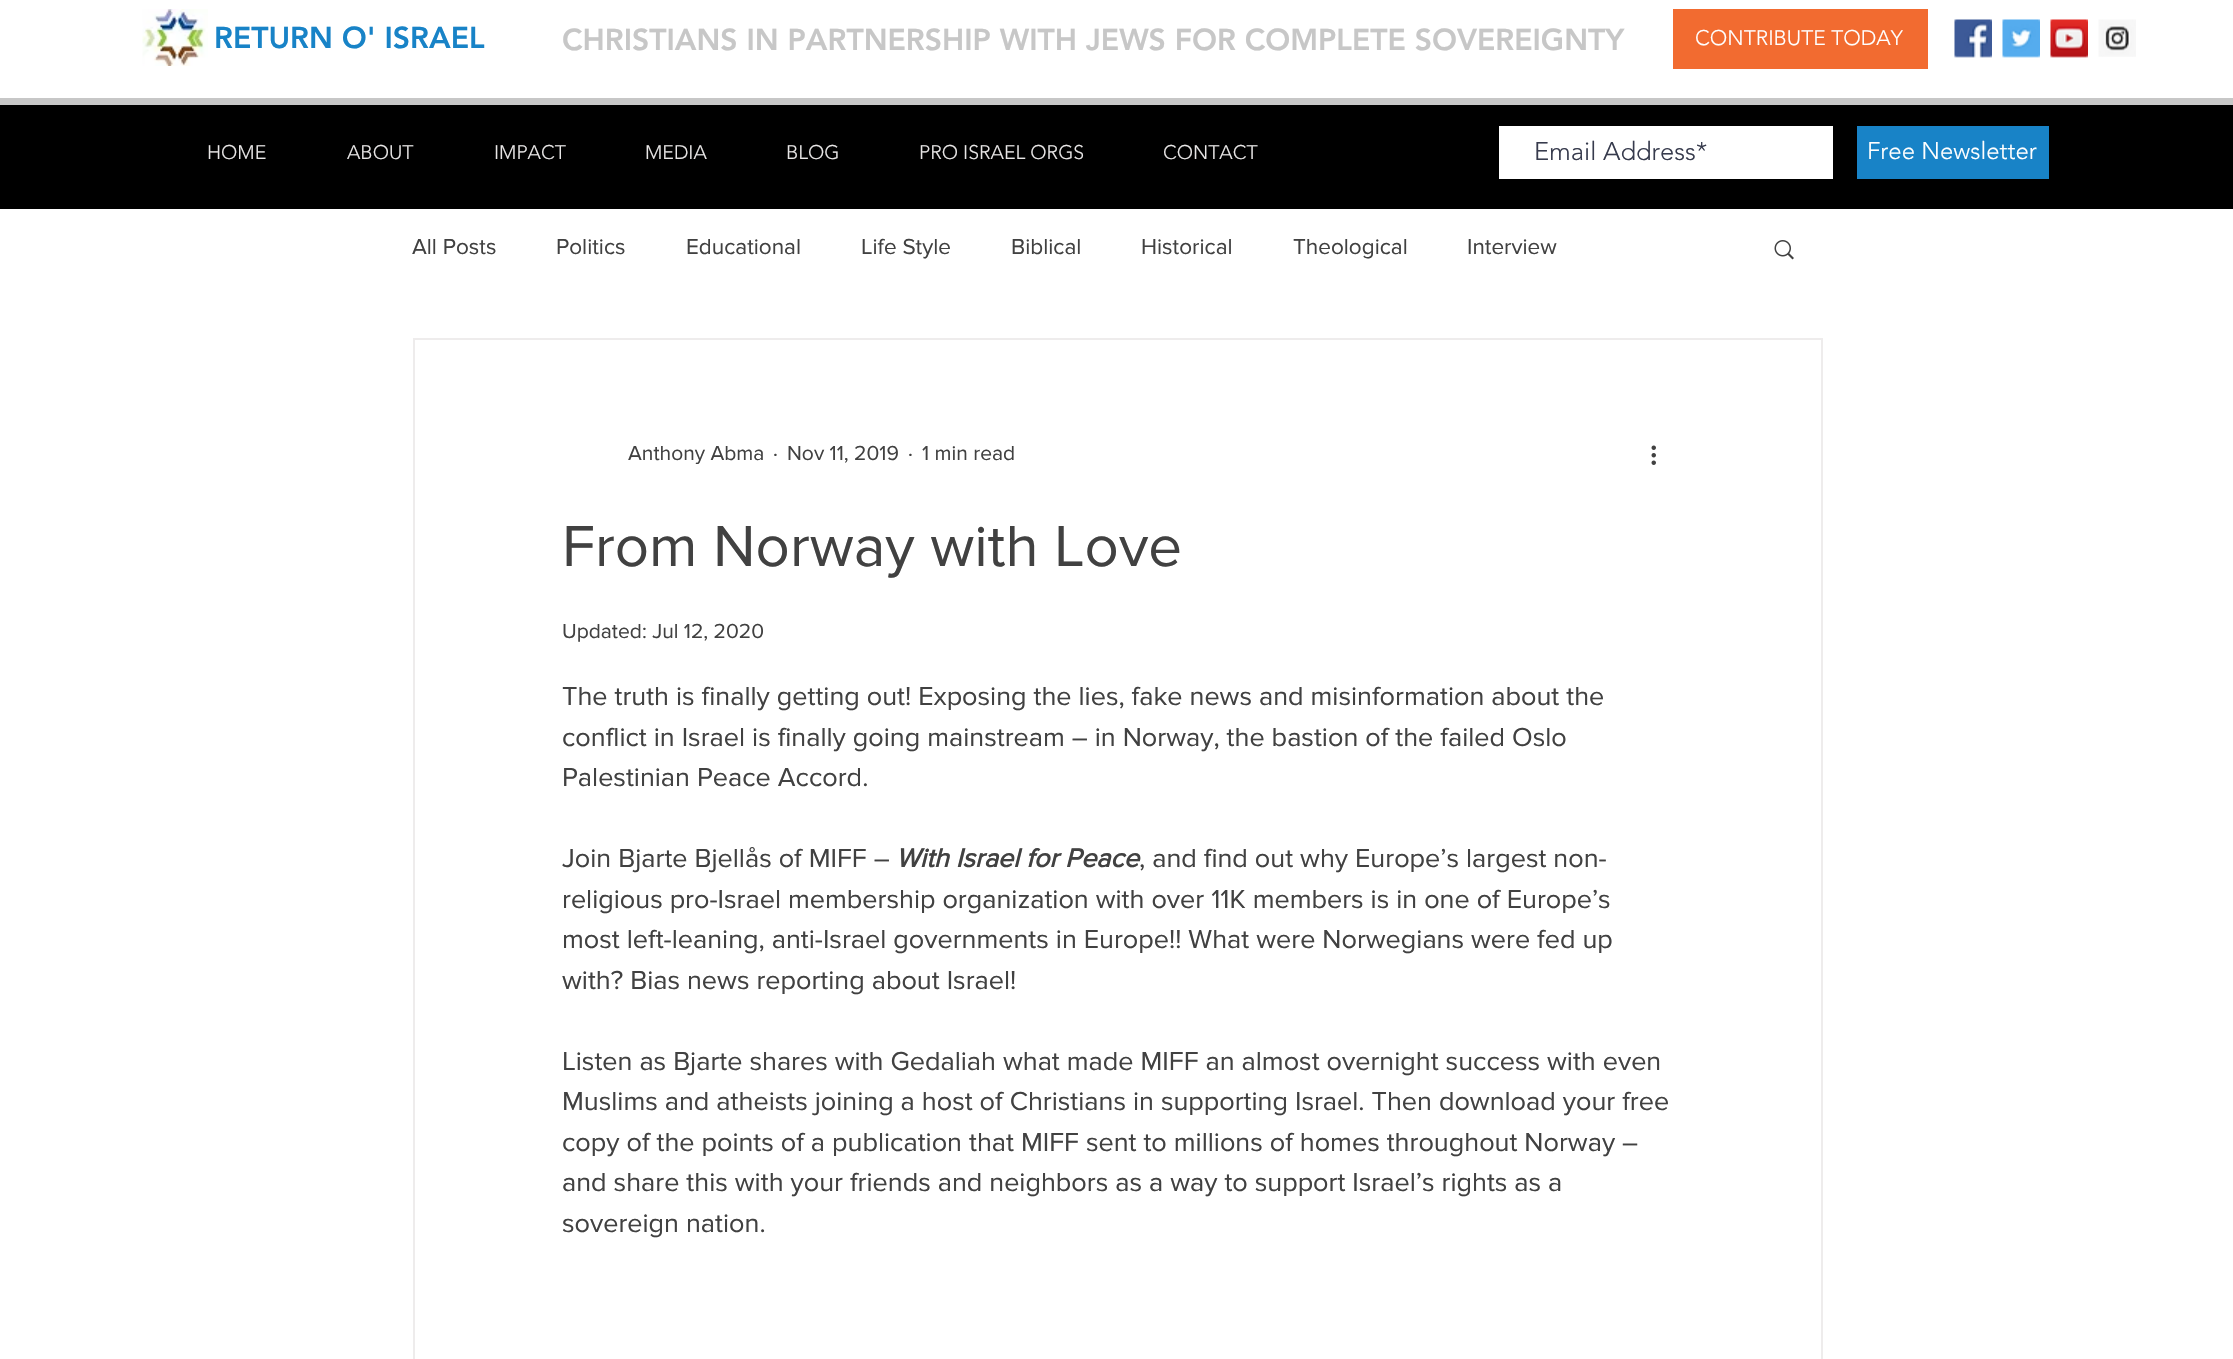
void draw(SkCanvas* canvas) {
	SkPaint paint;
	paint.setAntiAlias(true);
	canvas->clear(0xffffffff);
	canvas->drawImageRect(SkImages::DeferredFromEncodedData(SkData::MakeFromFileName("img1.png")), SkRect::MakeXYWH(142, 9, 66, 57), SkSamplingOptions());
	SkFont f1(fontMgr->matchFamilyStyle("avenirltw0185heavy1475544", SkFontStyle(900, SkFontStyle::kNormal_Width, SkFontStyle::kUpright_Slant)), 30);
	f1.setSubpixel(true);
	paint.setColor(0xff1883c7);
	canvas->drawString("RETURN O' ISRAEL", 214, 48, f1, paint);
	paint.setColor(0xffc7c7c7);
	canvas->drawString("CHRISTIANS IN PARTNERSHIP WITH JEWS FOR COMPLETE SOVEREIGNTY", 562, 50, f1, paint);
	paint.setColor(0xfff26b30);
	canvas->drawRect(SkRect::MakeXYWH(1673, 9, 255, 60), paint);
	SkFont f2(fontMgr->matchFamilyStyle("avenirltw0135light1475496", SkFontStyle(300, SkFontStyle::kNormal_Width, SkFontStyle::kUpright_Slant)), 21);
	f2.setSubpixel(true);
	paint.setColor(0xffffffff);
	canvas->drawString("CONTRIBUTE TODAY", 1695, 45, f2, paint);
	canvas->drawImageRect(SkImages::DeferredFromEncodedData(SkData::MakeFromFileName("img2.png")), SkRect::MakeXYWH(1954, 19, 38, 39), SkSamplingOptions());
	canvas->drawImageRect(SkImages::DeferredFromEncodedData(SkData::MakeFromFileName("img3.png")), SkRect::MakeXYWH(2002, 19, 38, 39), SkSamplingOptions());
	canvas->drawImageRect(SkImages::DeferredFromEncodedData(SkData::MakeFromFileName("img4.png")), SkRect::MakeXYWH(2050, 19, 38, 39), SkSamplingOptions());
	canvas->drawImageRect(SkImages::DeferredFromEncodedData(SkData::MakeFromFileName("img5.png")), SkRect::MakeXYWH(2098, 19, 38, 38), SkSamplingOptions());
	paint.setColor(0xffc7c7c7);
	canvas->drawRect(SkRect::MakeXYWH(0, 98, 2233, 7), paint);
	paint.setColor(0xff000000);
	canvas->drawRect(SkRect::MakeXYWH(0, 105, 2233, 104), paint);
	SkFont f3(fontMgr->matchFamilyStyle("avenirltw0135light1475496", SkFontStyle(300, SkFontStyle::kNormal_Width, SkFontStyle::kUpright_Slant)), 19.5);
	f3.setSubpixel(true);
	paint.setColor(0xffe8e6e6);
	canvas->drawString("HOME", 207, 159, f3, paint);
	canvas->drawString("ABOUT", 347, 159, f3, paint);
	canvas->drawString("IMPACT", 494, 159, f3, paint);
	canvas->drawString("MEDIA", 645, 159, f3, paint);
	canvas->drawString("BLOG", 786, 159, f3, paint);
	canvas->drawString("PRO ISRAEL ORGS", 919, 159, f3, paint);
	canvas->drawString("CONTACT", 1163, 159, f3, paint);
	paint.setColor(0xffffffff);
	canvas->drawRect(SkRect::MakeXYWH(1499, 126, 334, 53), paint);
	SkFont f4(fontMgr->matchFamilyStyle("avenirltw0135light1475496", SkFontStyle(300, SkFontStyle::kNormal_Width, SkFontStyle::kUpright_Slant)), 25.5);
	f4.setSubpixel(true);
	paint.setColor(0xff373b4d);
	canvas->drawString("Email Address*", 1534, 160, f4, paint);
	paint.setColor(0xff1883c7);
	canvas->drawRect(SkRect::MakeXYWH(1857, 126, 192, 53), paint);
	SkFont f5(fontMgr->matchFamilyStyle("avenirltw0135light1475496", SkFontStyle(300, SkFontStyle::kNormal_Width, SkFontStyle::kUpright_Slant)), 24);
	f5.setSubpixel(true);
	paint.setColor(0xffffffff);
	canvas->drawString("Free Newsletter", 1867, 159, f5, paint);
	SkFont f6(fontMgr->matchFamilyStyle("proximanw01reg", SkFontStyle::Normal()), 22.5);
	f6.setSubpixel(true);
	paint.setColor(0xff414141);
	canvas->drawString("All Posts", 412, 254, f6, paint);
	canvas->drawString("Politics", 556, 254, f6, paint);
	canvas->drawString("Educational", 686, 254, f6, paint);
	canvas->drawString("Life Style", 861, 254, f6, paint);
	canvas->drawString("Biblical", 1011, 254, f6, paint);
	canvas->drawString("Historical", 1141, 254, f6, paint);
	canvas->drawString("Theological", 1293, 254, f6, paint);
	canvas->drawString("Interview", 1467, 254, f6, paint);
	canvas->drawImageRect(SkImages::DeferredFromEncodedData(SkData::MakeFromFileName("img6.png")), SkRect::MakeXYWH(1774, 240, 20, 20), SkSamplingOptions());
	paint.setStroke(true);
	paint.setStrokeWidth(2);
	paint.setColor(0xffeeecec);
	canvas->drawRect(SkRect::MakeXYWH(414, 339, 1408, 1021), paint);
	SkFont f7(fontMgr->matchFamilyStyle("proximanw01reg", SkFontStyle::Normal()), 21);
	f7.setSubpixel(true);
	paint.setStroke(false);
	paint.setColor(0xff414141);
	canvas->drawString("Anthony Abma", 628, 460, f7, paint);
	canvas->drawString("·", 773, 460, f7, paint);
	canvas->drawString("Nov 11, 2019", 787, 460, f7, paint);
	canvas->drawString("·", 908, 460, f7, paint);
	canvas->drawString("1 min read", 922, 460, f7, paint);
	canvas->drawImageRect(SkImages::DeferredFromEncodedData(SkData::MakeFromFileName("img7.png")), SkRect::MakeXYWH(1651, 445, 5, 20), SkSamplingOptions());
	SkFont f8(fontMgr->matchFamilyStyle("proximanw01reg", SkFontStyle::Normal()), 60);
	f8.setSubpixel(true);
	canvas->drawString("From Norway with Love", 562, 566, f8, paint);
	canvas->drawString("Updated: Jul 12, 2020", 562, 638, f7, paint);
	SkFont f9(fontMgr->matchFamilyStyle("proximanw01reg", SkFontStyle::Normal()), 27);
	f9.setSubpixel(true);
	canvas->drawString("The truth is finally getting out! Exposing the lies, fake news and misinformation about the", 562, 705, f9, paint);
	canvas->drawString("conflict in Israel is finally going mainstream – in Norway, the bastion of the failed Oslo", 562, 746, f9, paint);
	canvas->drawString("Palestinian Peace Accord.", 562, 786, f9, paint);
	canvas->drawString("Join Bjarte Bjellås of MIFF –", 562, 867, f9, paint);
	SkFont f10(fontMgr->matchFamilyStyle("proximanw01reg", SkFontStyle::BoldItalic()), 27);
	f10.setSubpixel(true);
	canvas->drawString("With Israel for Peace", 896, 867, f10, paint);
	canvas->drawString(", and find out why Europe’s largest non-", 1139, 867, f9, paint);
	canvas->drawString("religious pro-Israel membership organization with over 11K members is in one of Europe’s", 562, 908, f9, paint);
	canvas->drawString("most left-leaning, anti-Israel governments in Europe!! What were Norwegians were fed up", 562, 948, f9, paint);
	canvas->drawString("with? Bias news reporting about Israel!", 562, 989, f9, paint);
	canvas->drawString("Listen as Bjarte shares with Gedaliah what made MIFF an almost overnight success with even", 562, 1070, f9, paint);
	canvas->drawString("Muslims and atheists joining a host of Christians in supporting Israel. Then download your free", 562, 1110, f9, paint);
	canvas->drawString("copy of the points of a publication that MIFF sent to millions of homes throughout Norway –", 562, 1151, f9, paint);
	canvas->drawString("and share this with your friends and neighbors as a way to support Israel’s rights as a", 562, 1191, f9, paint);
	canvas->drawString("sovereign nation.", 562, 1232, f9, paint);
}
